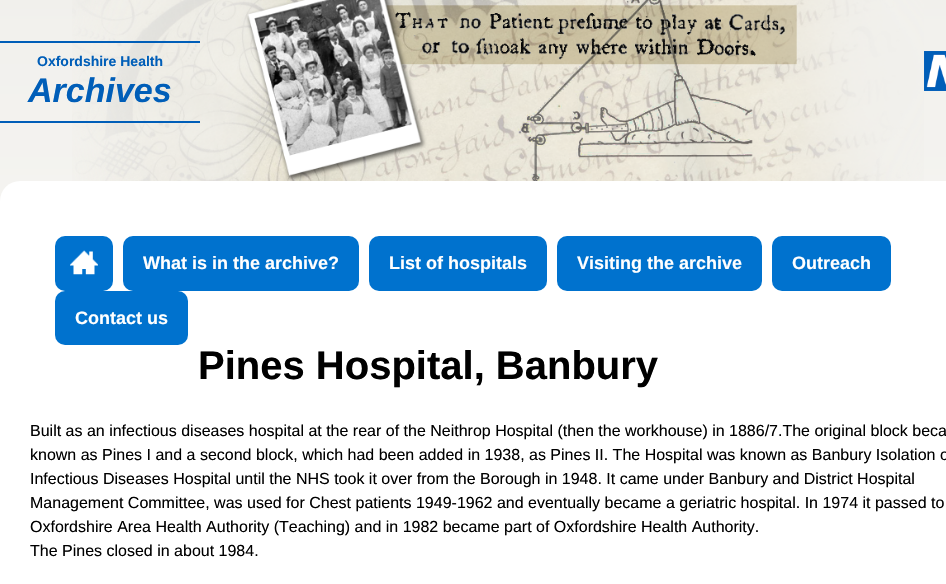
void draw(SkCanvas* canvas) {
	SkPaint paint;
	paint.setAntiAlias(true);
	canvas->clear(0xffffffff);
	{
		const SkColor colors[] = {0xfff1f0ec, 0xffffffff};
		const float stops[] = {0, 1};
		const SkPoint ends[] = {{473, -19}, {473, 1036}};
		paint.setShader(SkGradientShader::MakeLinear(ends, colors, stops, 2, SkTileMode::kClamp));
		paint.setAlpha(255);
	}
	canvas->drawRect(SkRect::MakeXYWH(0, 0, 946, 201), paint);
	canvas->drawImageRect(SkImages::DeferredFromEncodedData(SkData::MakeFromFileName("img1.png")), SkRect::MakeXYWH(72, 0, 852, 181), SkSamplingOptions());
	paint.setShader(nullptr);
	paint.setColor(0xff005eb8);
	canvas->drawRect(SkRect::MakeXYWH(0, 41, 200, 2), paint);
	canvas->drawRect(SkRect::MakeXYWH(0, 121, 200, 2), paint);
	SkFont f1(fontMgr->matchFamilyStyle("Liberation Sans", SkFontStyle::Bold()), 14);
	f1.setSubpixel(true);
	canvas->drawString("Oxfordshire Health", 37, 66, f1, paint);
	SkFont f2(fontMgr->matchFamilyStyle("Liberation Sans", SkFontStyle::BoldItalic()), 34);
	f2.setSubpixel(true);
	canvas->drawString("Archives", 28, 102, f2, paint);
	canvas->drawImageRect(SkImages::DeferredFromEncodedData(SkData::MakeFromFileName("img2.png")), SkRect::MakeXYWH(924, 51, 22, 40), SkSamplingOptions());
	paint.setColor(0xffffffff);
	canvas->drawRoundRect(SkRect::MakeXYWH(0, 181, 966, 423), 20, 20, paint);
	paint.setColor(0xff0072ce);
	canvas->drawRoundRect(SkRect::MakeXYWH(55, 236, 58, 55), 10, 10, paint);
	canvas->drawImageRect(SkImages::DeferredFromEncodedData(SkData::MakeFromFileName("img3.png")), SkRect::MakeXYWH(70, 250, 28, 25), SkSamplingOptions());
	canvas->drawRoundRect(SkRect::MakeXYWH(123, 236, 236, 55), 10, 10, paint);
	SkFont f3(fontMgr->matchFamilyStyle("Liberation Sans", SkFontStyle::Bold()), 18);
	f3.setSubpixel(true);
	paint.setColor(0xffffffff);
	canvas->drawString("What is in the archive?", 143, 269, f3, paint);
	paint.setColor(0xff0072ce);
	canvas->drawRoundRect(SkRect::MakeXYWH(369, 236, 178, 55), 10, 10, paint);
	paint.setColor(0xffffffff);
	canvas->drawString("List of hospitals", 389, 269, f3, paint);
	paint.setColor(0xff0072ce);
	canvas->drawRoundRect(SkRect::MakeXYWH(557, 236, 205, 55), 10, 10, paint);
	paint.setColor(0xffffffff);
	canvas->drawString("Visiting the archive", 577, 269, f3, paint);
	paint.setColor(0xff0072ce);
	canvas->drawRoundRect(SkRect::MakeXYWH(772, 236, 119, 55), 10, 10, paint);
	paint.setColor(0xffffffff);
	canvas->drawString("Outreach", 792, 269, f3, paint);
	paint.setColor(0xff0072ce);
	canvas->drawRoundRect(SkRect::MakeXYWH(55, 291, 133, 54), 10, 10, paint);
	paint.setColor(0xffffffff);
	canvas->drawString("Contact us", 75, 324, f3, paint);
	SkFont f4(fontMgr->matchFamilyStyle("Liberation Sans", SkFontStyle::Bold()), 40);
	f4.setSubpixel(true);
	paint.setColor(0xff000000);
	canvas->drawString("Pines Hospital, Banbury", 198, 379, f4, paint);
	SkFont f5(fontMgr->matchFamilyStyle("Liberation Sans", SkFontStyle::Normal()), 16);
	f5.setSubpixel(true);
	canvas->drawString("Built as an infectious diseases hospital at the rear of the Neithrop Hospital (then the workhouse) in 1886/7.The original block beca", 30, 436, f5, paint);
	canvas->drawString("known as Pines I and a second block, which had been added in 1938, as Pines II. The Hospital was known as Banbury Isolation o", 30, 460, f5, paint);
	canvas->drawString("Infectious Diseases Hospital until the NHS took it over from the Borough in 1948. It came under Banbury and District Hospital", 30, 484, f5, paint);
	canvas->drawString("Management Committee, was used for Chest patients 1949-1962 and eventually became a geriatric hospital. In 1974 it passed to", 30, 508, f5, paint);
	canvas->drawString("Oxfordshire Area Health Authority (Teaching) and in 1982 became part of Oxfordshire Health Authority.", 30, 532, f5, paint);
	canvas->drawString("The Pines closed in about 1984.", 30, 556, f5, paint);
}
